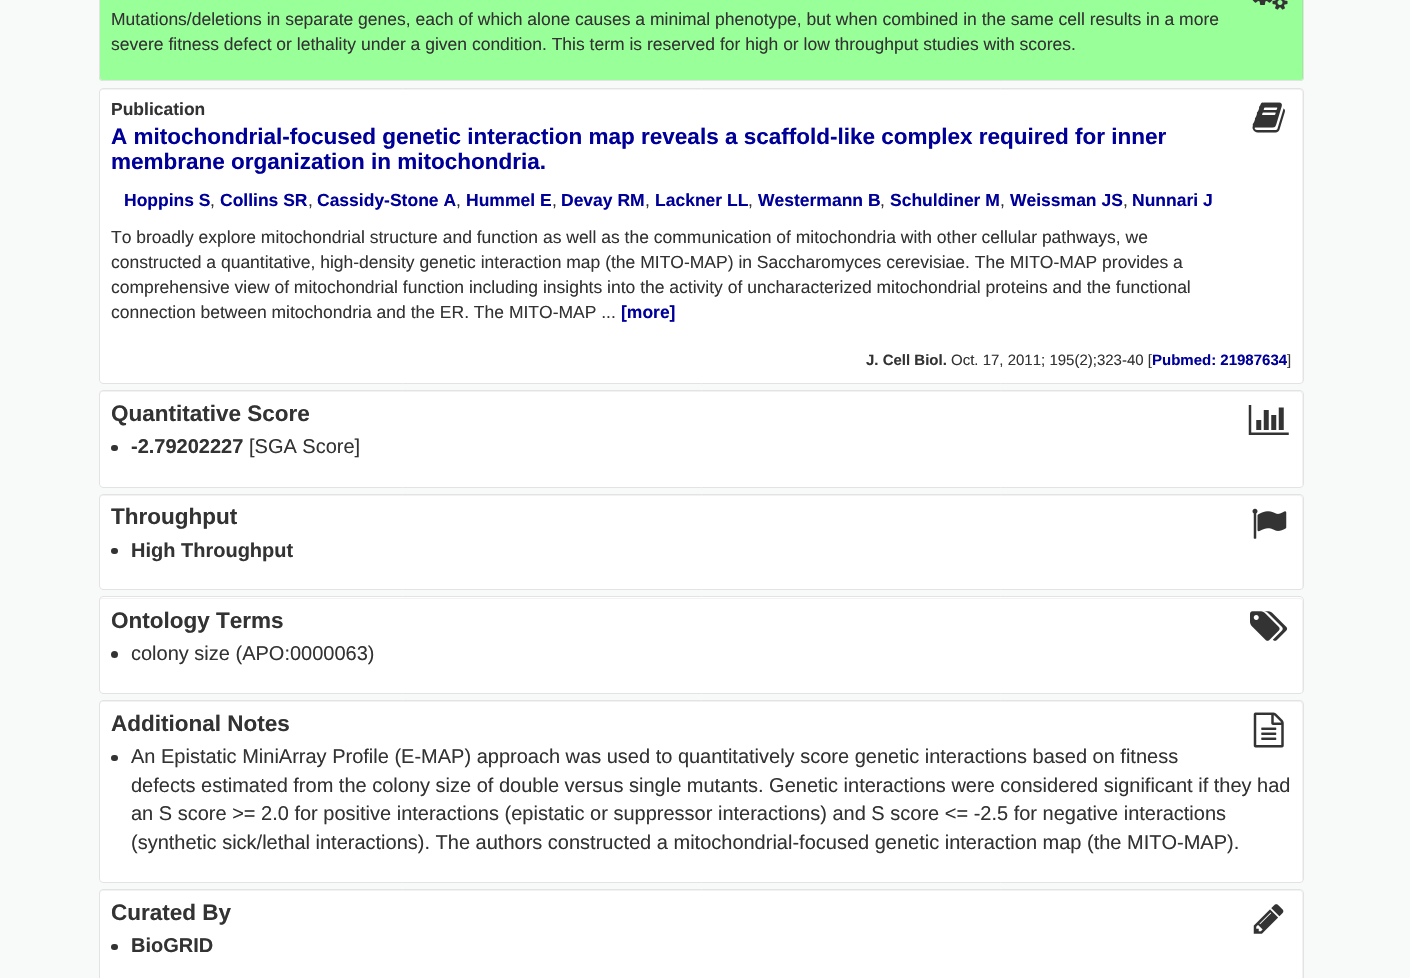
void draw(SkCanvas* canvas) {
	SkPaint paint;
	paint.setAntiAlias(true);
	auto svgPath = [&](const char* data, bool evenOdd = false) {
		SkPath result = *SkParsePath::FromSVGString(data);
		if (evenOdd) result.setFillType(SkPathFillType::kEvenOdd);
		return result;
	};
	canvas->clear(0xfff8faf9);
	paint.setColor(0xff99ff99);
	canvas->drawRoundRect(SkRect::MakeXYWH(99, -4, 1205, 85), 4, 4, paint);
	paint.setColor(0xff91f291);
	canvas->drawPath(svgPath("M102-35H1300C1301-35 1302-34 1302-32V80L1303 78V-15C1303-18 1306-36 1300-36H102C100-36 100-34 100-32C100-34 101-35 102-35Z"), paint);
	paint.setStroke(true);
	paint.setStrokeWidth(1);
	paint.setColor(0xffe3e3e3);
	canvas->drawRoundRect(SkRect::MakeXYWH(99.5, -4.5, 1204, 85), 3.5, 3.5, paint);
	canvas->drawImageRect(SkImages::DeferredFromEncodedData(SkData::MakeFromFileName("img1.png")), SkRect::MakeXYWH(1252, 0, 36, 10), SkSamplingOptions());
	SkFont f1(fontMgr->matchFamilyStyle("Liberation Sans", SkFontStyle::Normal()), 17.5);
	f1.setSubpixel(true);
	paint.setStroke(false);
	paint.setColor(0xff333333);
	canvas->drawString("Mutations/deletions in separate genes, each of which alone causes a minimal phenotype, but when combined in the same cell results in a more", 111, 25, f1, paint);
	canvas->drawString("severe fitness defect or lethality under a given condition. This term is reserved for high or low throughput studies with scores.", 111, 50, f1, paint);
	paint.setColor(0xffffffff);
	canvas->drawRoundRect(SkRect::MakeXYWH(99, 88, 1205, 296), 4, 4, paint);
	paint.setColor(0xfff2f2f2);
	canvas->drawPath(svgPath("M102 90H1300C1301 90 1302 91 1302 92V383C1302 382 1303 381 1303 380V92C1303 90 1302 89 1300 89H102C101 89 100 90 100 92C100 91 101 90 102 90Z"), paint);
	paint.setStroke(true);
	paint.setColor(0xffe3e3e3);
	canvas->drawRoundRect(SkRect::MakeXYWH(99.5, 88.5, 1204, 295), 3.5, 3.5, paint);
	SkFont f2(fontMgr->matchFamilyStyle("Liberation Sans", SkFontStyle::Bold()), 17.5);
	f2.setSubpixel(true);
	paint.setStroke(false);
	paint.setColor(0xff333333);
	canvas->drawString("Publication", 111, 115, f2, paint);
	canvas->drawImageRect(SkImages::DeferredFromEncodedData(SkData::MakeFromFileName("img2.png")), SkRect::MakeXYWH(1252, 102, 33, 31), SkSamplingOptions());
	SkFont f3(fontMgr->matchFamilyStyle("Liberation Sans", SkFontStyle::Bold()), 22.5);
	f3.setSubpixel(true);
	paint.setColor(0xff000099);
	canvas->drawString("A mitochondrial-focused genetic interaction map reveals a scaffold-like complex required for inner", 111, 144, f3, paint);
	canvas->drawString("membrane organization in mitochondria.", 111, 169, f3, paint);
	canvas->drawString("Hoppins S", 124, 206, f2, paint);
	paint.setColor(0xff333333);
	canvas->drawString(",", 210, 206, f1, paint);
	paint.setColor(0xff000099);
	canvas->drawString("Collins SR", 220, 206, f2, paint);
	paint.setColor(0xff333333);
	canvas->drawString(",", 308, 206, f1, paint);
	paint.setColor(0xff000099);
	canvas->drawString("Cassidy-Stone A", 317, 206, f2, paint);
	paint.setColor(0xff333333);
	canvas->drawString(",", 456, 206, f1, paint);
	paint.setColor(0xff000099);
	canvas->drawString("Hummel E", 466, 206, f2, paint);
	paint.setColor(0xff333333);
	canvas->drawString(",", 552, 206, f1, paint);
	paint.setColor(0xff000099);
	canvas->drawString("Devay RM", 561, 206, f2, paint);
	paint.setColor(0xff333333);
	canvas->drawString(",", 645, 206, f1, paint);
	paint.setColor(0xff000099);
	canvas->drawString("Lackner LL", 655, 206, f2, paint);
	paint.setColor(0xff333333);
	canvas->drawString(",", 748, 206, f1, paint);
	paint.setColor(0xff000099);
	canvas->drawString("Westermann B", 758, 206, f2, paint);
	paint.setColor(0xff333333);
	canvas->drawString(",", 880, 206, f1, paint);
	paint.setColor(0xff000099);
	canvas->drawString("Schuldiner M", 890, 206, f2, paint);
	paint.setColor(0xff333333);
	canvas->drawString(",", 1000, 206, f1, paint);
	paint.setColor(0xff000099);
	canvas->drawString("Weissman JS", 1010, 206, f2, paint);
	paint.setColor(0xff333333);
	canvas->drawString(",", 1123, 206, f1, paint);
	paint.setColor(0xff000099);
	canvas->drawString("Nunnari J", 1132, 206, f2, paint);
	paint.setColor(0xff333333);
	canvas->drawString("To broadly explore mitochondrial structure and function as well as the communication of mitochondria with other cellular pathways, we", 111, 243, f1, paint);
	canvas->drawString("constructed a quantitative, high-density genetic interaction map (the MITO-MAP) in Saccharomyces cerevisiae. The MITO-MAP provides a", 111, 268, f1, paint);
	canvas->drawString("comprehensive view of mitochondrial function including insights into the activity of uncharacterized mitochondrial proteins and the functional", 111, 293, f1, paint);
	canvas->drawString("connection between mitochondria and the ER. The MITO-MAP ...", 111, 318, f1, paint);
	paint.setColor(0xff000099);
	canvas->drawString("[more]", 621, 318, f2, paint);
	SkFont f4(fontMgr->matchFamilyStyle("Liberation Sans", SkFontStyle::Bold()), 15);
	f4.setSubpixel(true);
	paint.setColor(0xff333333);
	canvas->drawString("J. Cell Biol.", 866, 365, f4, paint);
	SkFont f5(fontMgr->matchFamilyStyle("Liberation Sans", SkFontStyle::Normal()), 15);
	f5.setSubpixel(true);
	canvas->drawString("Oct. 17, 2011; 195(2);323-40 [", 951, 365, f5, paint);
	paint.setColor(0xff000099);
	canvas->drawString("Pubmed: 21987634", 1152, 365, f4, paint);
	paint.setColor(0xff333333);
	canvas->drawString("]", 1287, 365, f5, paint);
	paint.setColor(0xffffffff);
	canvas->drawRoundRect(SkRect::MakeXYWH(99, 390, 1205, 98), 4, 4, paint);
	paint.setColor(0xfff2f2f2);
	canvas->drawPath(svgPath("M102 392H1300C1301 392 1302 394 1302 395V486L1303 484V408C1303 404 1305 391 1300 391H102C100 391 100 393 100 395C100 394 101 392 102 392Z"), paint);
	paint.setStroke(true);
	paint.setColor(0xffe3e3e3);
	canvas->drawRoundRect(SkRect::MakeXYWH(99.5, 390.5, 1204, 97), 3.5, 3.5, paint);
	paint.setStroke(false);
	paint.setColor(0xff333333);
	canvas->drawString("Quantitative Score", 111, 421, f3, paint);
	canvas->drawImageRect(SkImages::DeferredFromEncodedData(SkData::MakeFromFileName("img3.png")), SkRect::MakeXYWH(1248, 405, 41, 30), SkSamplingOptions());
	canvas->drawRoundRect(SkRect::MakeXYWH(111, 445, 7, 6), 3, 3, paint);
	SkFont f6(fontMgr->matchFamilyStyle("Liberation Sans", SkFontStyle::Bold()), 20);
	f6.setSubpixel(true);
	canvas->drawString("-2.79202227", 131, 453, f6, paint);
	SkFont f7(fontMgr->matchFamilyStyle("Liberation Sans", SkFontStyle::Normal()), 20);
	f7.setSubpixel(true);
	canvas->drawString("[SGA Score]", 249, 453, f7, paint);
	paint.setColor(0xffffffff);
	canvas->drawRoundRect(SkRect::MakeXYWH(99, 494, 1205, 96), 4, 4, paint);
	paint.setColor(0xfff2f2f2);
	canvas->drawPath(svgPath("M102 496H1300C1301 496 1302 497 1302 499V589L1303 587V512C1303 507 1305 495 1300 495H102C100 495 100 497 100 499C100 497 101 496 102 496Z"), paint);
	paint.setStroke(true);
	paint.setColor(0xffe3e3e3);
	canvas->drawRoundRect(SkRect::MakeXYWH(99.5, 494.5, 1204, 95), 3.5, 3.5, paint);
	paint.setStroke(false);
	paint.setColor(0xff333333);
	canvas->drawString("Throughput", 111, 524, f3, paint);
	canvas->drawImageRect(SkImages::DeferredFromEncodedData(SkData::MakeFromFileName("img4.png")), SkRect::MakeXYWH(1252, 508, 35, 31), SkSamplingOptions());
	canvas->drawRoundRect(SkRect::MakeXYWH(111, 548, 7, 6), 3, 3, paint);
	canvas->drawString("High Throughput", 131, 557, f6, paint);
	paint.setColor(0xffffffff);
	canvas->drawRoundRect(SkRect::MakeXYWH(99, 596, 1205, 98), 4, 4, paint);
	paint.setColor(0xfff2f2f2);
	canvas->drawPath(svgPath("M102 599H1300C1301 599 1302 600 1302 601V693L1303 691V616C1303 611 1305 598 1300 598H102C101 598 100 599 100 601C100 600 101 599 102 599Z"), paint);
	paint.setStroke(true);
	paint.setColor(0xffe3e3e3);
	canvas->drawRoundRect(SkRect::MakeXYWH(99.5, 596.5, 1204, 97), 3.5, 3.5, paint);
	paint.setStroke(false);
	paint.setColor(0xff333333);
	canvas->drawString("Ontology Terms", 111, 628, f3, paint);
	canvas->drawImageRect(SkImages::DeferredFromEncodedData(SkData::MakeFromFileName("img5.png")), SkRect::MakeXYWH(1250, 611, 38, 30), SkSamplingOptions());
	canvas->drawCircle(114.5, 654.5, 3.5, paint);
	canvas->drawString("colony size (APO:0000063)", 131, 660, f7, paint);
	paint.setColor(0xffffffff);
	canvas->drawRoundRect(SkRect::MakeXYWH(99, 700, 1205, 183), 4, 4, paint);
	paint.setColor(0xfff2f2f2);
	canvas->drawPath(svgPath("M102 702H1300C1301 702 1302 704 1302 705V881C1303 880 1303 879 1303 878V704C1303 702 1302 701 1300 701H102C101 701 100 702 100 704V705C100 704 101 702 102 702Z"), paint);
	paint.setStroke(true);
	paint.setColor(0xffe3e3e3);
	canvas->drawRoundRect(SkRect::MakeXYWH(99.5, 700.5, 1204, 182), 3.5, 3.5, paint);
	paint.setStroke(false);
	paint.setColor(0xff333333);
	canvas->drawString("Additional Notes", 111, 731, f3, paint);
	canvas->drawImageRect(SkImages::DeferredFromEncodedData(SkData::MakeFromFileName("img6.png")), SkRect::MakeXYWH(1253, 712, 31, 36), SkSamplingOptions());
	canvas->drawRoundRect(SkRect::MakeXYWH(111, 755, 7, 6), 3, 3, paint);
	canvas->drawString("An Epistatic MiniArray Profile (E-MAP) approach was used to quantitatively score genetic interactions based on fitness", 131, 763, f7, paint);
	canvas->drawString("defects estimated from the colony size of double versus single mutants. Genetic interactions were considered significant if they had", 131, 792, f7, paint);
	canvas->drawString("an S score >= 2.0 for positive interactions (epistatic or suppressor interactions) and S score <= -2.5 for negative interactions", 131, 820, f7, paint);
	canvas->drawString("(synthetic sick/lethal interactions). The authors constructed a mitochondrial-focused genetic interaction map (the MITO-MAP).", 131, 849, f7, paint);
	paint.setColor(0xffffffff);
	canvas->drawRoundRect(SkRect::MakeXYWH(99, 889, 1205, 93), 4, 4, paint);
	paint.setColor(0xfff2f2f2);
	canvas->drawPath(svgPath("M102 891H1300C1301 891 1302 892 1302 894V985L1303 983V908C1303 903 1305 890 1300 890H102C100 890 100 892 100 894C100 892 101 891 102 891Z"), paint);
	paint.setStroke(true);
	paint.setColor(0xffe3e3e3);
	canvas->drawRoundRect(SkRect::MakeXYWH(99.5, 889.5, 1204, 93), 3.5, 3.5, paint);
	paint.setStroke(false);
	paint.setColor(0xff333333);
	canvas->drawString("Curated By", 111, 920, f3, paint);
	canvas->drawImageRect(SkImages::DeferredFromEncodedData(SkData::MakeFromFileName("img7.png")), SkRect::MakeXYWH(1253, 904, 31, 30), SkSamplingOptions());
	canvas->drawRoundRect(SkRect::MakeXYWH(111, 944, 7, 6), 3, 3, paint);
	canvas->drawString("BioGRID", 131, 952, f6, paint);
}
